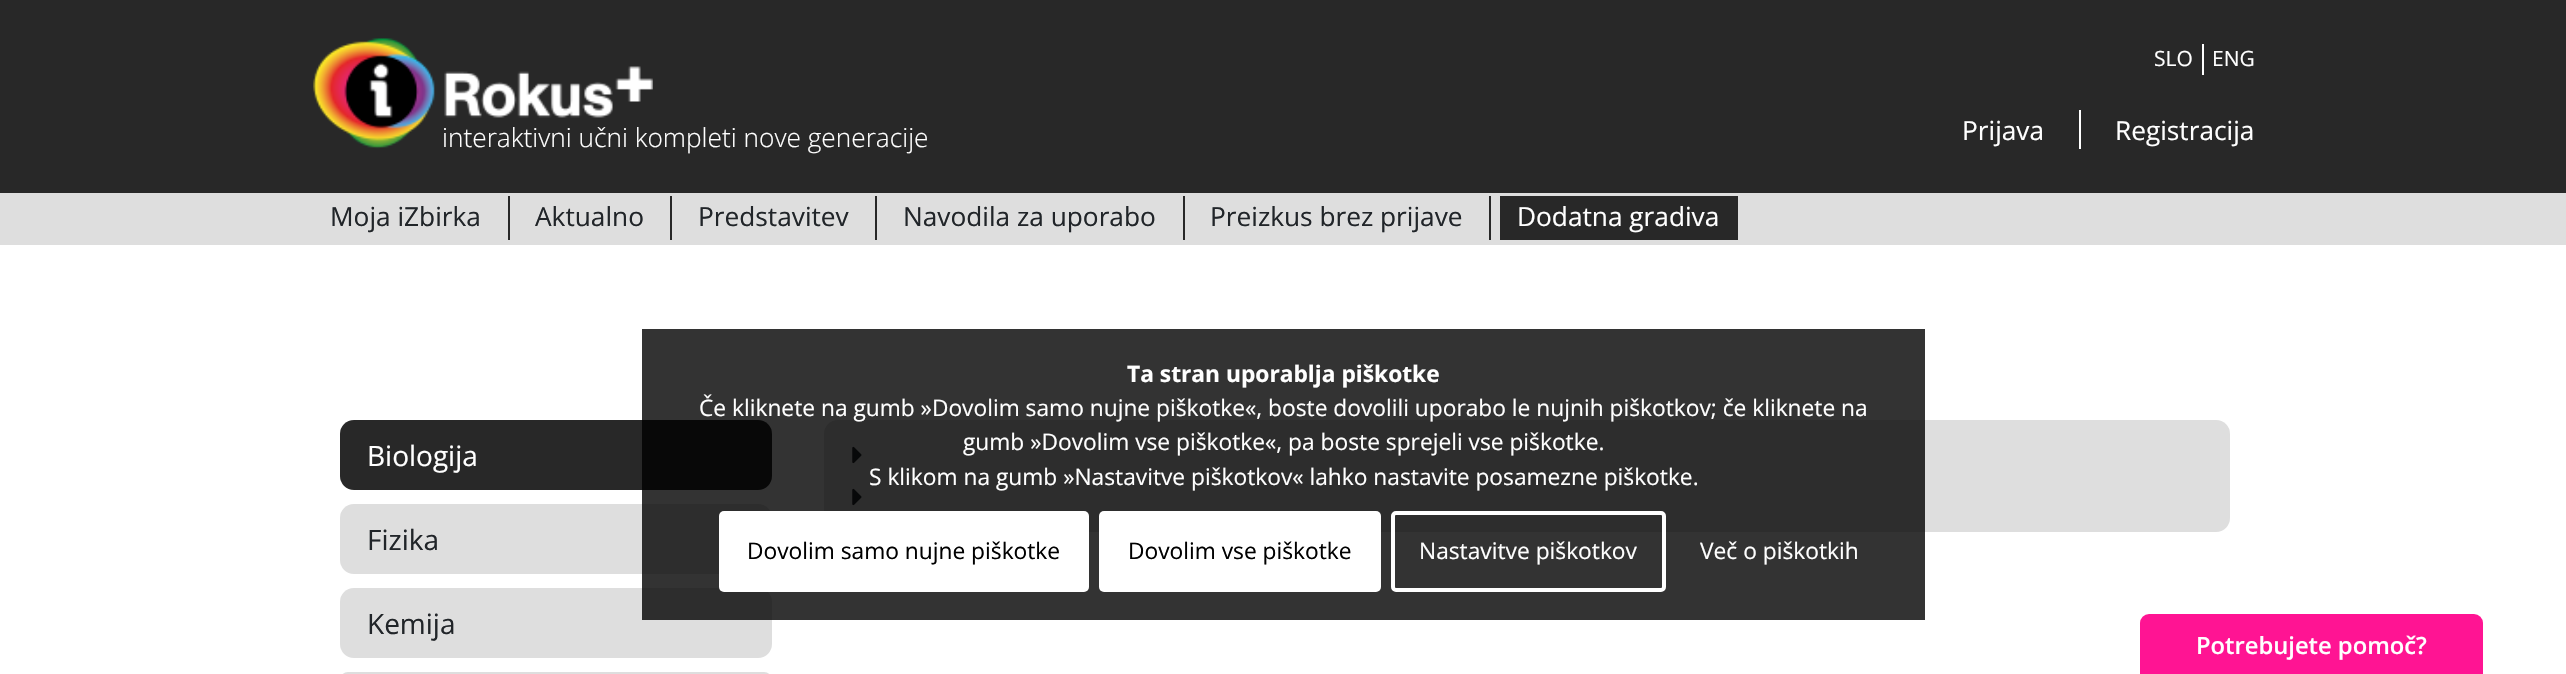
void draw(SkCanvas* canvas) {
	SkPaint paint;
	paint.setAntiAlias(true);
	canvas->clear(0xffffffff);
	paint.setColor(0xff282828);
	canvas->drawRect(SkRect::MakeXYWH(0, 0, 2566, 193), paint);
	canvas->drawImageRect(SkImages::DeferredFromEncodedData(SkData::MakeFromFileName("img1.png")), SkRect::MakeXYWH(313, 38, 340, 111), SkSamplingOptions());
	SkFont f1(fontMgr->matchFamilyStyle("Open Sans", SkFontStyle(300, SkFontStyle::kNormal_Width, SkFontStyle::kUpright_Slant)), 26.25);
	f1.setSubpixel(true);
	paint.setColor(0xffffffff);
	canvas->drawString("interaktivni učni kompleti nove generacije", 442, 147, f1, paint);
	SkFont f2(fontMgr->matchFamilyStyle("Open Sans", SkFontStyle::Normal()), 21);
	f2.setSubpixel(true);
	canvas->drawString("SLO", 2154, 66, f2, paint);
	canvas->drawRect(SkRect::MakeXYWH(2202, 44, 2, 31), paint);
	canvas->drawString("ENG", 2212, 66, f2, paint);
	SkFont f3(fontMgr->matchFamilyStyle("Open Sans", SkFontStyle::Normal()), 26.25);
	f3.setSubpixel(true);
	canvas->drawString("Prijava", 1962, 140, f3, paint);
	canvas->drawRect(SkRect::MakeXYWH(2079, 110, 2, 39), paint);
	canvas->drawString("Registracija", 2115, 140, f3, paint);
	paint.setColor(0xffdedede);
	canvas->drawRect(SkRect::MakeXYWH(0, 193, 2566, 52), paint);
	paint.setColor(0xff212529);
	canvas->drawString("Moja iZbirka", 330, 226, f3, paint);
	paint.setColor(0xff282828);
	canvas->drawRect(SkRect::MakeXYWH(508, 196, 2, 44), paint);
	paint.setColor(0xff212529);
	canvas->drawString("Aktualno", 535, 226, f3, paint);
	paint.setColor(0xff282828);
	canvas->drawRect(SkRect::MakeXYWH(670, 196, 2, 44), paint);
	paint.setColor(0xff212529);
	canvas->drawString("Predstavitev", 698, 226, f3, paint);
	paint.setColor(0xff282828);
	canvas->drawRect(SkRect::MakeXYWH(875, 196, 2, 44), paint);
	paint.setColor(0xff212529);
	canvas->drawString("Navodila za uporabo", 903, 226, f3, paint);
	paint.setColor(0xff282828);
	canvas->drawRect(SkRect::MakeXYWH(1183, 196, 2, 44), paint);
	paint.setColor(0xff212529);
	canvas->drawString("Preizkus brez prijave", 1210, 226, f3, paint);
	paint.setColor(0xff282828);
	canvas->drawRect(SkRect::MakeXYWH(1489, 196, 2, 44), paint);
	canvas->drawRect(SkRect::MakeXYWH(1500, 196, 238, 44), paint);
	paint.setColor(0xffffffff);
	canvas->drawString("Dodatna gradiva", 1517, 226, f3, paint);
	paint.setColor(0xff282828);
	canvas->drawRoundRect(SkRect::MakeXYWH(340, 420, 432, 70), 14, 14, paint);
	SkFont f4(fontMgr->matchFamilyStyle("Open Sans", SkFontStyle::Normal()), 28);
	f4.setSubpixel(true);
	paint.setColor(0xffffffff);
	canvas->drawString("Biologija", 367, 466, f4, paint);
	paint.setColor(0xffdedede);
	canvas->drawRoundRect(SkRect::MakeXYWH(340, 504, 432, 70), 14, 14, paint);
	paint.setColor(0xff212529);
	canvas->drawString("Fizika", 367, 550, f4, paint);
	paint.setColor(0xffdedede);
	canvas->drawRoundRect(SkRect::MakeXYWH(340, 588, 432, 70), 14, 14, paint);
	paint.setColor(0xff212529);
	canvas->drawString("Kemija", 367, 634, f4, paint);
	paint.setColor(0xffdedede);
	canvas->drawRoundRect(SkRect::MakeXYWH(340, 672, 432, 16), 14, 14, paint);
	canvas->drawRoundRect(SkRect::MakeXYWH(824, 420, 1406, 112), 14, 14, paint);
	canvas->drawImageRect(SkImages::DeferredFromEncodedData(SkData::MakeFromFileName("img2.png")), SkRect::MakeXYWH(852, 446, 10, 18), SkSamplingOptions());
	canvas->drawImageRect(SkImages::DeferredFromEncodedData(SkData::MakeFromFileName("img2.png")), SkRect::MakeXYWH(852, 488, 10, 18), SkSamplingOptions());
	paint.setColor(0xcc000000);
	canvas->drawRect(SkRect::MakeXYWH(642, 329, 1283, 291), paint);
	SkFont f5(fontMgr->matchFamilyStyle("Open Sans", SkFontStyle::Bold()), 22.75);
	f5.setSubpixel(true);
	paint.setColor(0xffffffff);
	canvas->drawString("Ta stran uporablja piškotke", 1127, 382, f5, paint);
	SkFont f6(fontMgr->matchFamilyStyle("Open Sans", SkFontStyle::Normal()), 22.75);
	f6.setSubpixel(true);
	canvas->drawString("Če kliknete na gumb »Dovolim samo nujne piškotke«, boste dovolili uporabo le nujnih piškotkov; če kliknete na", 699, 416, f6, paint);
	canvas->drawString("gumb »Dovolim vse piškotke«, pa boste sprejeli vse piškotke.", 963, 450, f6, paint);
	canvas->drawString("S klikom na gumb »Nastavitve piškotkov« lahko nastavite posamezne piškotke.", 869, 485, f6, paint);
	canvas->drawRoundRect(SkRect::MakeXYWH(719, 511, 370, 81), 5, 5, paint);
	paint.setColor(0xff000000);
	canvas->drawString("Dovolim samo nujne piškotke", 747, 559, f6, paint);
	paint.setColor(0xffffffff);
	canvas->drawRoundRect(SkRect::MakeXYWH(1099, 511, 282, 81), 5, 5, paint);
	paint.setColor(0xff000000);
	canvas->drawString("Dovolim vse piškotke", 1128, 559, f6, paint);
	paint.setStroke(true);
	paint.setStrokeWidth(4);
	paint.setColor(0xffffffff);
	canvas->drawRoundRect(SkRect::MakeXYWH(1393, 513, 271, 77), 3, 3, paint);
	paint.setStroke(false);
	canvas->drawString("Nastavitve piškotkov", 1419, 559, f6, paint);
	canvas->drawString("Več o piškotkih", 1700, 559, f6, paint);
	paint.setColor(0xffff1493);
	canvas->drawRoundRect(SkRect::MakeXYWH(2140, 614, 343, 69), 9, 9, paint);
	SkFont f7(fontMgr->matchFamilyStyle("Open Sans", SkFontStyle(600, SkFontStyle::kNormal_Width, SkFontStyle::kUpright_Slant)), 23.75);
	f7.setSubpixel(true);
	paint.setColor(0xffffffff);
	canvas->drawString("Potrebujete pomoč?", 2196, 654, f7, paint);
}
